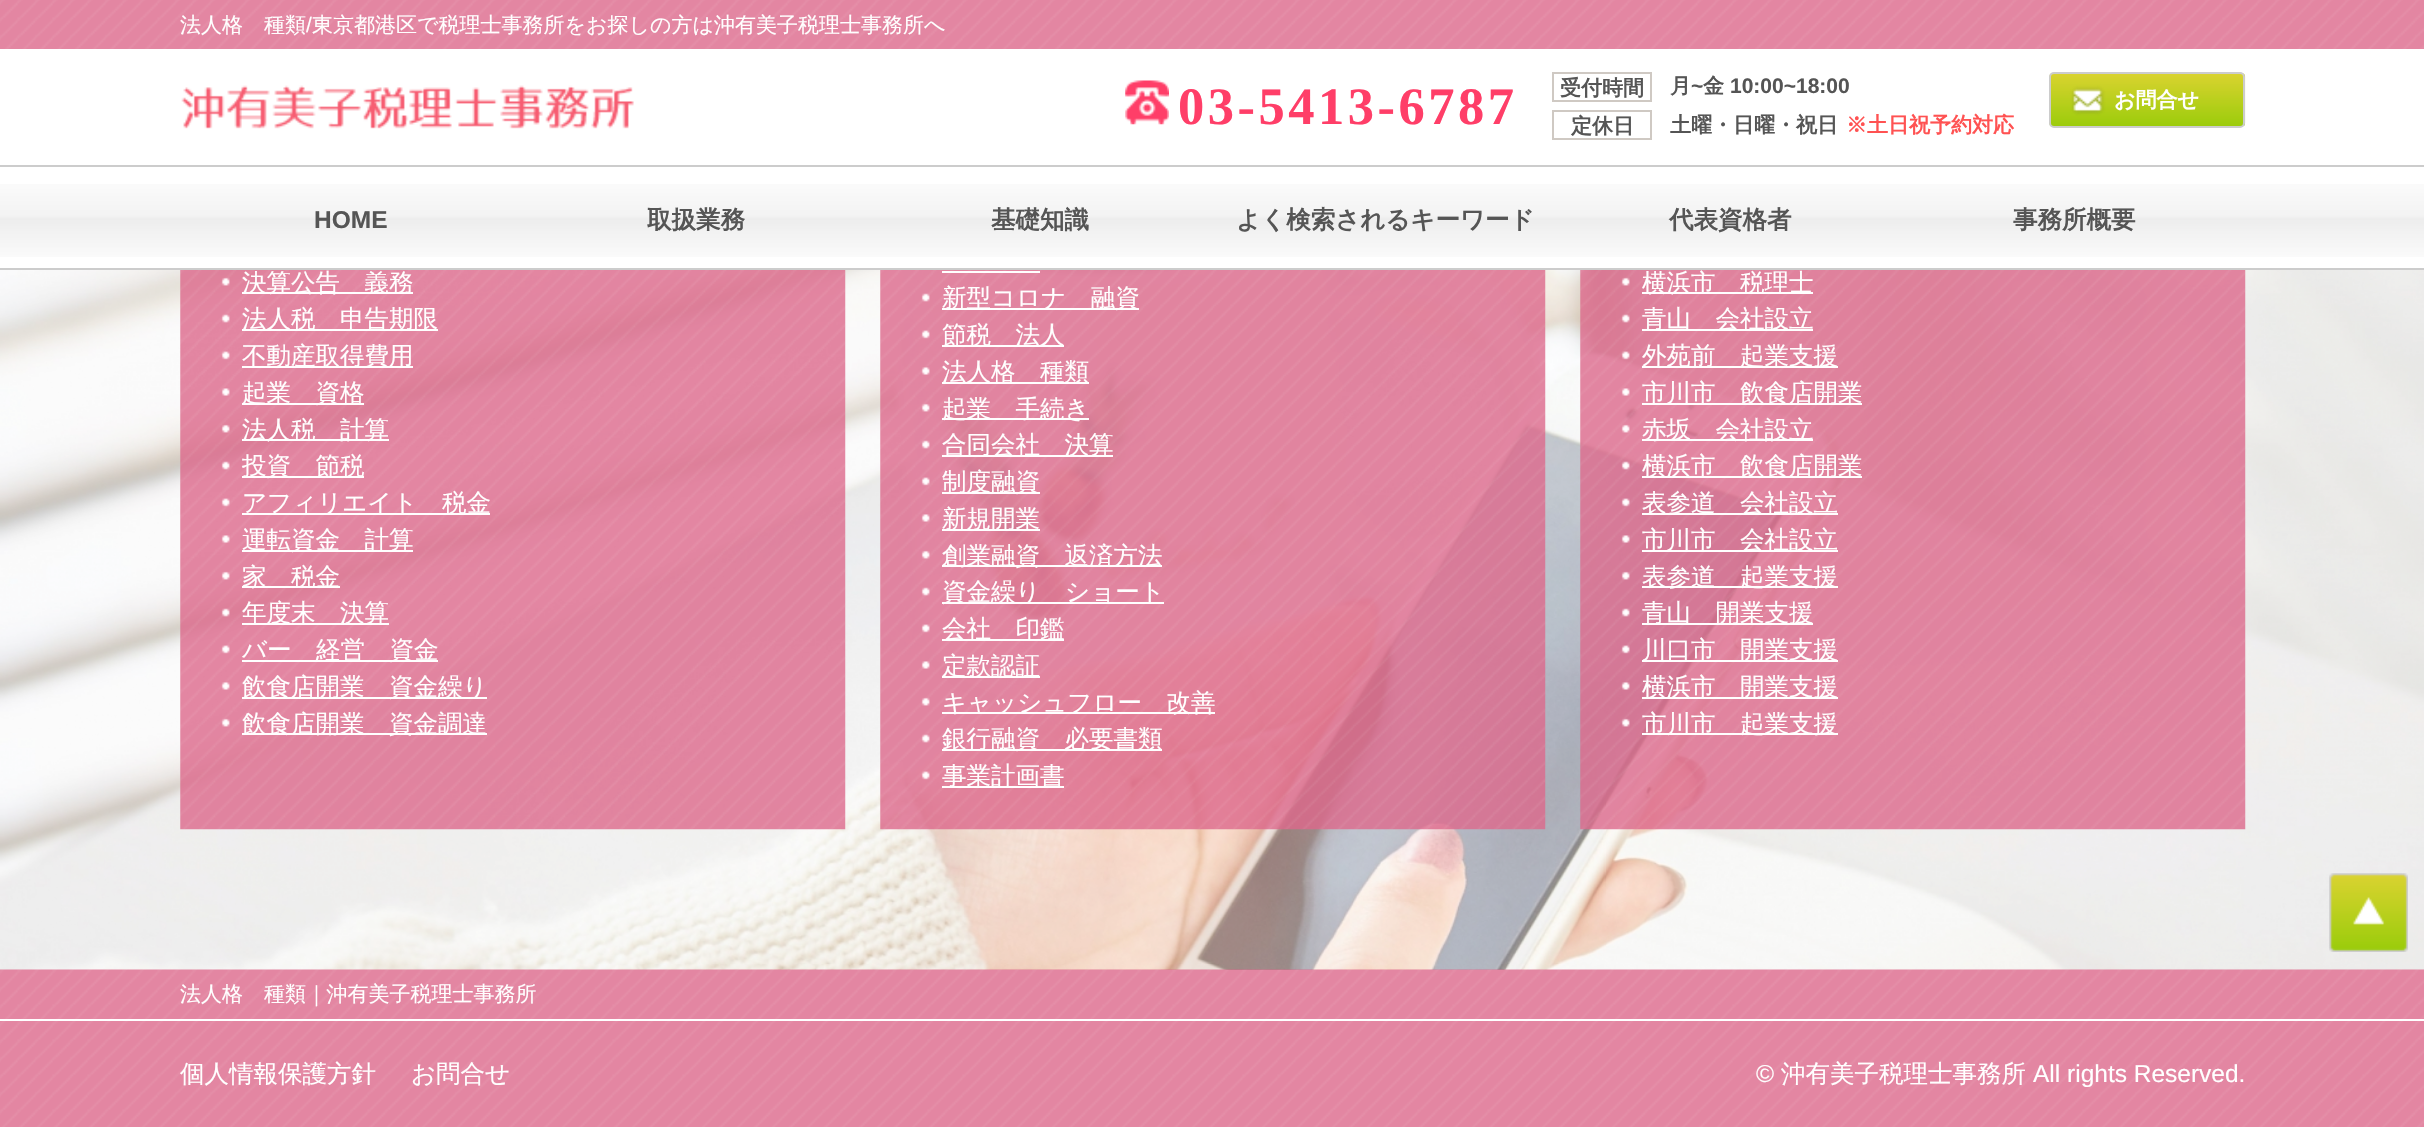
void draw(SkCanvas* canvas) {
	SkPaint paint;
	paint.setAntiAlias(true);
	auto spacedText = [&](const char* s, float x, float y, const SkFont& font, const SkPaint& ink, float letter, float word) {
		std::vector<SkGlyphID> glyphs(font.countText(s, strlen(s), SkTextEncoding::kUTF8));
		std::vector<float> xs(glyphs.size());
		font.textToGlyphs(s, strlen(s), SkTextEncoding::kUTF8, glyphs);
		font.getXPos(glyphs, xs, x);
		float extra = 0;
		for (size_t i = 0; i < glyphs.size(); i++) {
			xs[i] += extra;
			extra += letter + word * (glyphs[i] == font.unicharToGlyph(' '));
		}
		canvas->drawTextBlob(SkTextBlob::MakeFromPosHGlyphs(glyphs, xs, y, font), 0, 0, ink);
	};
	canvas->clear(0xffffffff);
	canvas->drawImageRect(SkImages::DeferredFromEncodedData(SkData::MakeFromFileName("img1.png")), SkRect::MakeXYWH(0, 0, 2424, 49), SkSamplingOptions());
	SkFont f1(fontMgr->matchFamilyStyle("WenQuanYi Zen Hei", SkFontStyle(500, SkFontStyle::kNormal_Width, SkFontStyle::kUpright_Slant)), 21);
	f1.setSubpixel(true);
	paint.setColor(0xffffffff);
	canvas->drawString("法人格　種類", 180, 32, f1, paint);
	SkFont f2(fontMgr->matchFamilyStyle("Liberation Sans", SkFontStyle::Normal()), 21);
	f2.setSubpixel(true);
	canvas->drawString("/", 306, 32, f2, paint);
	canvas->drawString("東京都港区で税理士事務所をお探しの方は沖有美子税理士事務所へ", 312, 32, f1, paint);
	canvas->drawImageRect(SkImages::DeferredFromEncodedData(SkData::MakeFromFileName("img2.png")), SkRect::MakeXYWH(181, 85, 453, 44), SkSamplingOptions());
	canvas->drawImageRect(SkImages::DeferredFromEncodedData(SkData::MakeFromFileName("img3.png")), SkRect::MakeXYWH(1125, 80, 44, 45), SkSamplingOptions());
	SkFont f3(fontMgr->matchFamilyStyle("Liberation Serif", SkFontStyle::Bold()), 52.5);
	f3.setSubpixel(true);
	paint.setColor(0xffff3e68);
	spacedText("03-5413-6787", 1178, 124, f3, paint, 3.5, 0);
	paint.setStroke(true);
	paint.setStrokeWidth(2);
	paint.setColor(0xffcfc9c3);
	canvas->drawRect(SkRect::MakeXYWH(1553, 73, 98, 28), paint);
	SkFont f4(fontMgr->matchFamilyStyle("WenQuanYi Zen Hei", SkFontStyle::Bold()), 21);
	f4.setSubpixel(true);
	paint.setStroke(false);
	paint.setColor(0xff555555);
	canvas->drawString("受付時間", 1560, 95, f4, paint);
	canvas->drawString("月", 1670, 93, f4, paint);
	SkFont f5(fontMgr->matchFamilyStyle("Liberation Sans", SkFontStyle::Bold()), 21);
	f5.setSubpixel(true);
	canvas->drawString("~", 1691, 93, f5, paint);
	canvas->drawString("金", 1703, 93, f4, paint);
	canvas->drawString("10:00~18:00", 1730, 93, f5, paint);
	paint.setStroke(true);
	paint.setColor(0xffcfc9c3);
	canvas->drawRect(SkRect::MakeXYWH(1553, 111, 98, 28), paint);
	paint.setStroke(false);
	paint.setColor(0xff555555);
	canvas->drawString("定休日", 1571, 133, f4, paint);
	canvas->drawString("土曜・日曜・祝日", 1670, 132, f4, paint);
	paint.setColor(0xffff5252);
	canvas->drawString("※土日祝予約対応", 1846, 132, f4, paint);
	canvas->drawImageRect(SkImages::DeferredFromEncodedData(SkData::MakeFromFileName("img4.png")), SkRect::MakeXYWH(2049, 73, 197, 53), SkSamplingOptions());
	paint.setStroke(true);
	paint.setColor(0xffcccccc);
	canvas->drawRoundRect(SkRect::MakeXYWH(2050, 73, 194, 54), 4, 4, paint);
	paint.setStroke(false);
	paint.setColor(0xffffffff);
	canvas->drawString("お問合せ", 2114, 107, f4, paint);
	canvas->drawImageRect(SkImages::DeferredFromEncodedData(SkData::MakeFromFileName("img5.png")), SkRect::MakeXYWH(0, 184, 2424, 73), SkSamplingOptions());
	paint.setColor(0xffcccccc);
	canvas->drawRect(SkRect::MakeXYWH(0, 165, 2424, 2), paint);
	canvas->drawRect(SkRect::MakeXYWH(0, 268, 2424, 2), paint);
	SkFont f6(fontMgr->matchFamilyStyle("Liberation Sans", SkFontStyle::Bold()), 24.5);
	f6.setSubpixel(true);
	paint.setColor(0xff555555);
	canvas->drawString("HOME", 314, 228, f6, paint);
	SkFont f7(fontMgr->matchFamilyStyle("WenQuanYi Zen Hei", SkFontStyle::Bold()), 24.5);
	f7.setSubpixel(true);
	canvas->drawString("取扱業務", 647, 228, f7, paint);
	canvas->drawString("基礎知識", 991, 228, f7, paint);
	canvas->drawString("よく検索されるキーワード", 1236, 228, f7, paint);
	canvas->drawString("代表資格者", 1669, 228, f7, paint);
	canvas->drawString("事務所概要", 2013, 228, f7, paint);
	canvas->drawImageRect(SkImages::DeferredFromEncodedData(SkData::MakeFromFileName("img6.png")), SkRect::MakeXYWH(0, 270, 2424, 700), SkSamplingOptions());
	canvas->drawImageRect(SkImages::DeferredFromEncodedData(SkData::MakeFromFileName("img7.png")), SkRect::MakeXYWH(180, 270, 666, 560), SkSamplingOptions());
	canvas->drawImageRect(SkImages::DeferredFromEncodedData(SkData::MakeFromFileName("img8.png")), SkRect::MakeXYWH(221, 277, 9, 9), SkSamplingOptions());
	paint.setColor(0xffffffff);
	canvas->drawRect(SkRect::MakeXYWH(242, 292, 171, 2), paint);
	SkFont f8(fontMgr->matchFamilyStyle("WenQuanYi Zen Hei", SkFontStyle(500, SkFontStyle::kNormal_Width, SkFontStyle::kUpright_Slant)), 24.5);
	f8.setSubpixel(true);
	canvas->drawString("決算公告　義務", 242, 291, f8, paint);
	canvas->drawImageRect(SkImages::DeferredFromEncodedData(SkData::MakeFromFileName("img9.png")), SkRect::MakeXYWH(221, 314, 9, 9), SkSamplingOptions());
	canvas->drawRect(SkRect::MakeXYWH(242, 329, 196, 2), paint);
	canvas->drawString("法人税　申告期限", 242, 327, f8, paint);
	canvas->drawImageRect(SkImages::DeferredFromEncodedData(SkData::MakeFromFileName("img10.png")), SkRect::MakeXYWH(221, 351, 9, 9), SkSamplingOptions());
	canvas->drawRect(SkRect::MakeXYWH(242, 366, 171, 2), paint);
	canvas->drawString("不動産取得費用", 242, 364, f8, paint);
	canvas->drawImageRect(SkImages::DeferredFromEncodedData(SkData::MakeFromFileName("img11.png")), SkRect::MakeXYWH(221, 388, 9, 8), SkSamplingOptions());
	canvas->drawRect(SkRect::MakeXYWH(242, 403, 122, 2), paint);
	canvas->drawString("起業　資格", 242, 401, f8, paint);
	canvas->drawImageRect(SkImages::DeferredFromEncodedData(SkData::MakeFromFileName("img12.png")), SkRect::MakeXYWH(221, 424, 9, 9), SkSamplingOptions());
	canvas->drawRect(SkRect::MakeXYWH(242, 439, 147, 2), paint);
	canvas->drawString("法人税　計算", 242, 438, f8, paint);
	canvas->drawImageRect(SkImages::DeferredFromEncodedData(SkData::MakeFromFileName("img13.png")), SkRect::MakeXYWH(221, 461, 9, 9), SkSamplingOptions());
	canvas->drawRect(SkRect::MakeXYWH(242, 476, 122, 2), paint);
	canvas->drawString("投資　節税", 242, 474, f8, paint);
	canvas->drawImageRect(SkImages::DeferredFromEncodedData(SkData::MakeFromFileName("img14.png")), SkRect::MakeXYWH(221, 498, 9, 9), SkSamplingOptions());
	canvas->drawRect(SkRect::MakeXYWH(242, 513, 248, 2), paint);
	canvas->drawString("アフィリエイト　税金", 242, 511, f8, paint);
	canvas->drawImageRect(SkImages::DeferredFromEncodedData(SkData::MakeFromFileName("img15.png")), SkRect::MakeXYWH(221, 535, 9, 8), SkSamplingOptions());
	canvas->drawRect(SkRect::MakeXYWH(242, 550, 171, 2), paint);
	canvas->drawString("運転資金　計算", 242, 548, f8, paint);
	canvas->drawImageRect(SkImages::DeferredFromEncodedData(SkData::MakeFromFileName("img16.png")), SkRect::MakeXYWH(221, 571, 9, 9), SkSamplingOptions());
	canvas->drawRect(SkRect::MakeXYWH(242, 586, 98, 2), paint);
	canvas->drawString("家　税金", 242, 585, f8, paint);
	canvas->drawImageRect(SkImages::DeferredFromEncodedData(SkData::MakeFromFileName("img17.png")), SkRect::MakeXYWH(221, 608, 9, 9), SkSamplingOptions());
	canvas->drawRect(SkRect::MakeXYWH(242, 623, 147, 2), paint);
	canvas->drawString("年度末　決算", 242, 621, f8, paint);
	canvas->drawImageRect(SkImages::DeferredFromEncodedData(SkData::MakeFromFileName("img18.png")), SkRect::MakeXYWH(221, 645, 9, 9), SkSamplingOptions());
	canvas->drawRect(SkRect::MakeXYWH(242, 660, 196, 2), paint);
	canvas->drawString("バー　経営　資金", 242, 658, f8, paint);
	canvas->drawImageRect(SkImages::DeferredFromEncodedData(SkData::MakeFromFileName("img19.png")), SkRect::MakeXYWH(221, 682, 9, 8), SkSamplingOptions());
	canvas->drawRect(SkRect::MakeXYWH(242, 697, 245, 2), paint);
	canvas->drawString("飲食店開業　資金繰り", 242, 695, f8, paint);
	canvas->drawImageRect(SkImages::DeferredFromEncodedData(SkData::MakeFromFileName("img20.png")), SkRect::MakeXYWH(221, 718, 9, 9), SkSamplingOptions());
	canvas->drawRect(SkRect::MakeXYWH(242, 733, 245, 2), paint);
	canvas->drawString("飲食店開業　資金調達", 242, 732, f8, paint);
	canvas->drawImageRect(SkImages::DeferredFromEncodedData(SkData::MakeFromFileName("img21.png")), SkRect::MakeXYWH(880, 270, 666, 560), SkSamplingOptions());
	canvas->drawRect(SkRect::MakeXYWH(942, 271, 98, 2), paint);
	canvas->drawImageRect(SkImages::DeferredFromEncodedData(SkData::MakeFromFileName("img22.png")), SkRect::MakeXYWH(921, 293, 9, 9), SkSamplingOptions());
	canvas->drawRect(SkRect::MakeXYWH(942, 308, 197, 2), paint);
	canvas->drawString("新型コロナ　融資", 942, 306, f8, paint);
	canvas->drawImageRect(SkImages::DeferredFromEncodedData(SkData::MakeFromFileName("img23.png")), SkRect::MakeXYWH(921, 330, 9, 9), SkSamplingOptions());
	canvas->drawRect(SkRect::MakeXYWH(942, 345, 122, 2), paint);
	canvas->drawString("節税　法人", 942, 343, f8, paint);
	canvas->drawImageRect(SkImages::DeferredFromEncodedData(SkData::MakeFromFileName("img24.png")), SkRect::MakeXYWH(921, 367, 9, 8), SkSamplingOptions());
	canvas->drawRect(SkRect::MakeXYWH(942, 382, 147, 2), paint);
	canvas->drawString("法人格　種類", 942, 380, f8, paint);
	canvas->drawImageRect(SkImages::DeferredFromEncodedData(SkData::MakeFromFileName("img25.png")), SkRect::MakeXYWH(921, 403, 9, 9), SkSamplingOptions());
	canvas->drawRect(SkRect::MakeXYWH(942, 418, 147, 2), paint);
	canvas->drawString("起業　手続き", 942, 417, f8, paint);
	canvas->drawImageRect(SkImages::DeferredFromEncodedData(SkData::MakeFromFileName("img26.png")), SkRect::MakeXYWH(921, 440, 9, 9), SkSamplingOptions());
	canvas->drawRect(SkRect::MakeXYWH(942, 455, 171, 2), paint);
	canvas->drawString("合同会社　決算", 942, 453, f8, paint);
	canvas->drawImageRect(SkImages::DeferredFromEncodedData(SkData::MakeFromFileName("img27.png")), SkRect::MakeXYWH(921, 477, 9, 9), SkSamplingOptions());
	canvas->drawRect(SkRect::MakeXYWH(942, 492, 98, 2), paint);
	canvas->drawString("制度融資", 942, 490, f8, paint);
	canvas->drawImageRect(SkImages::DeferredFromEncodedData(SkData::MakeFromFileName("img28.png")), SkRect::MakeXYWH(921, 514, 9, 8), SkSamplingOptions());
	canvas->drawRect(SkRect::MakeXYWH(942, 529, 98, 2), paint);
	canvas->drawString("新規開業", 942, 527, f8, paint);
	canvas->drawImageRect(SkImages::DeferredFromEncodedData(SkData::MakeFromFileName("img29.png")), SkRect::MakeXYWH(921, 550, 9, 9), SkSamplingOptions());
	canvas->drawRect(SkRect::MakeXYWH(942, 565, 220, 2), paint);
	canvas->drawString("創業融資　返済方法", 942, 564, f8, paint);
	canvas->drawImageRect(SkImages::DeferredFromEncodedData(SkData::MakeFromFileName("img30.png")), SkRect::MakeXYWH(921, 587, 9, 9), SkSamplingOptions());
	canvas->drawRect(SkRect::MakeXYWH(942, 602, 222, 2), paint);
	canvas->drawString("資金繰り　ショート", 942, 600, f8, paint);
	canvas->drawImageRect(SkImages::DeferredFromEncodedData(SkData::MakeFromFileName("img31.png")), SkRect::MakeXYWH(921, 624, 9, 9), SkSamplingOptions());
	canvas->drawRect(SkRect::MakeXYWH(942, 639, 122, 2), paint);
	canvas->drawString("会社　印鑑", 942, 637, f8, paint);
	canvas->drawImageRect(SkImages::DeferredFromEncodedData(SkData::MakeFromFileName("img32.png")), SkRect::MakeXYWH(921, 661, 9, 8), SkSamplingOptions());
	canvas->drawRect(SkRect::MakeXYWH(942, 676, 98, 2), paint);
	canvas->drawString("定款認証", 942, 674, f8, paint);
	canvas->drawImageRect(SkImages::DeferredFromEncodedData(SkData::MakeFromFileName("img33.png")), SkRect::MakeXYWH(921, 697, 9, 9), SkSamplingOptions());
	canvas->drawRect(SkRect::MakeXYWH(942, 712, 273, 2), paint);
	canvas->drawString("キャッシュフロー　改善", 942, 711, f8, paint);
	canvas->drawImageRect(SkImages::DeferredFromEncodedData(SkData::MakeFromFileName("img34.png")), SkRect::MakeXYWH(921, 734, 9, 9), SkSamplingOptions());
	canvas->drawRect(SkRect::MakeXYWH(942, 749, 220, 2), paint);
	canvas->drawString("銀行融資　必要書類", 942, 747, f8, paint);
	canvas->drawImageRect(SkImages::DeferredFromEncodedData(SkData::MakeFromFileName("img35.png")), SkRect::MakeXYWH(921, 771, 9, 9), SkSamplingOptions());
	canvas->drawRect(SkRect::MakeXYWH(942, 786, 122, 2), paint);
	canvas->drawString("事業計画書", 942, 784, f8, paint);
	canvas->drawImageRect(SkImages::DeferredFromEncodedData(SkData::MakeFromFileName("img36.png")), SkRect::MakeXYWH(1580, 270, 666, 560), SkSamplingOptions());
	canvas->drawImageRect(SkImages::DeferredFromEncodedData(SkData::MakeFromFileName("img37.png")), SkRect::MakeXYWH(1621, 277, 9, 9), SkSamplingOptions());
	canvas->drawRect(SkRect::MakeXYWH(1642, 292, 171, 2), paint);
	canvas->drawString("横浜市　税理士", 1642, 291, f8, paint);
	canvas->drawImageRect(SkImages::DeferredFromEncodedData(SkData::MakeFromFileName("img38.png")), SkRect::MakeXYWH(1621, 314, 9, 9), SkSamplingOptions());
	canvas->drawRect(SkRect::MakeXYWH(1642, 329, 171, 2), paint);
	canvas->drawString("青山　会社設立", 1642, 327, f8, paint);
	canvas->drawImageRect(SkImages::DeferredFromEncodedData(SkData::MakeFromFileName("img39.png")), SkRect::MakeXYWH(1621, 351, 9, 9), SkSamplingOptions());
	canvas->drawRect(SkRect::MakeXYWH(1642, 366, 196, 2), paint);
	canvas->drawString("外苑前　起業支援", 1642, 364, f8, paint);
	canvas->drawImageRect(SkImages::DeferredFromEncodedData(SkData::MakeFromFileName("img40.png")), SkRect::MakeXYWH(1621, 388, 9, 8), SkSamplingOptions());
	canvas->drawRect(SkRect::MakeXYWH(1642, 403, 220, 2), paint);
	canvas->drawString("市川市　飲食店開業", 1642, 401, f8, paint);
	canvas->drawImageRect(SkImages::DeferredFromEncodedData(SkData::MakeFromFileName("img41.png")), SkRect::MakeXYWH(1621, 424, 9, 9), SkSamplingOptions());
	canvas->drawRect(SkRect::MakeXYWH(1642, 439, 171, 2), paint);
	canvas->drawString("赤坂　会社設立", 1642, 438, f8, paint);
	canvas->drawImageRect(SkImages::DeferredFromEncodedData(SkData::MakeFromFileName("img42.png")), SkRect::MakeXYWH(1621, 461, 9, 9), SkSamplingOptions());
	canvas->drawRect(SkRect::MakeXYWH(1642, 476, 220, 2), paint);
	canvas->drawString("横浜市　飲食店開業", 1642, 474, f8, paint);
	canvas->drawImageRect(SkImages::DeferredFromEncodedData(SkData::MakeFromFileName("img43.png")), SkRect::MakeXYWH(1621, 498, 9, 9), SkSamplingOptions());
	canvas->drawRect(SkRect::MakeXYWH(1642, 513, 196, 2), paint);
	canvas->drawString("表参道　会社設立", 1642, 511, f8, paint);
	canvas->drawImageRect(SkImages::DeferredFromEncodedData(SkData::MakeFromFileName("img44.png")), SkRect::MakeXYWH(1621, 535, 9, 8), SkSamplingOptions());
	canvas->drawRect(SkRect::MakeXYWH(1642, 550, 196, 2), paint);
	canvas->drawString("市川市　会社設立", 1642, 548, f8, paint);
	canvas->drawImageRect(SkImages::DeferredFromEncodedData(SkData::MakeFromFileName("img45.png")), SkRect::MakeXYWH(1621, 571, 9, 9), SkSamplingOptions());
	canvas->drawRect(SkRect::MakeXYWH(1642, 586, 196, 2), paint);
	canvas->drawString("表参道　起業支援", 1642, 585, f8, paint);
	canvas->drawImageRect(SkImages::DeferredFromEncodedData(SkData::MakeFromFileName("img46.png")), SkRect::MakeXYWH(1621, 608, 9, 9), SkSamplingOptions());
	canvas->drawRect(SkRect::MakeXYWH(1642, 623, 171, 2), paint);
	canvas->drawString("青山　開業支援", 1642, 621, f8, paint);
	canvas->drawImageRect(SkImages::DeferredFromEncodedData(SkData::MakeFromFileName("img47.png")), SkRect::MakeXYWH(1621, 645, 9, 9), SkSamplingOptions());
	canvas->drawRect(SkRect::MakeXYWH(1642, 660, 196, 2), paint);
	canvas->drawString("川口市　開業支援", 1642, 658, f8, paint);
	canvas->drawImageRect(SkImages::DeferredFromEncodedData(SkData::MakeFromFileName("img48.png")), SkRect::MakeXYWH(1621, 682, 9, 8), SkSamplingOptions());
	canvas->drawRect(SkRect::MakeXYWH(1642, 697, 196, 2), paint);
	canvas->drawString("横浜市　開業支援", 1642, 695, f8, paint);
	canvas->drawImageRect(SkImages::DeferredFromEncodedData(SkData::MakeFromFileName("img49.png")), SkRect::MakeXYWH(1621, 718, 9, 9), SkSamplingOptions());
	canvas->drawRect(SkRect::MakeXYWH(1642, 733, 196, 2), paint);
	canvas->drawString("市川市　起業支援", 1642, 732, f8, paint);
	canvas->drawImageRect(SkImages::DeferredFromEncodedData(SkData::MakeFromFileName("img50.png")), SkRect::MakeXYWH(2329, 873, 79, 79), SkSamplingOptions());
	canvas->drawImageRect(SkImages::DeferredFromEncodedData(SkData::MakeFromFileName("img51.png")), SkRect::MakeXYWH(0, 969, 2424, 158), SkSamplingOptions());
	canvas->drawRect(SkRect::MakeXYWH(0, 1019, 2424, 2), paint);
	canvas->drawString("法人格　種類｜沖有美子税理士事務所", 180, 1001, f1, paint);
	canvas->drawString("個人情報保護方針", 180, 1082, f8, paint);
	canvas->drawString("お問合せ", 411, 1082, f8, paint);
	SkFont f9(fontMgr->matchFamilyStyle("Liberation Sans", SkFontStyle::Normal()), 24.5);
	f9.setSubpixel(true);
	canvas->drawString("©", 1756, 1082, f9, paint);
	canvas->drawString("沖有美子税理士事務所", 1781, 1082, f8, paint);
	canvas->drawString("All rights Reserved.", 2033, 1082, f9, paint);
}
